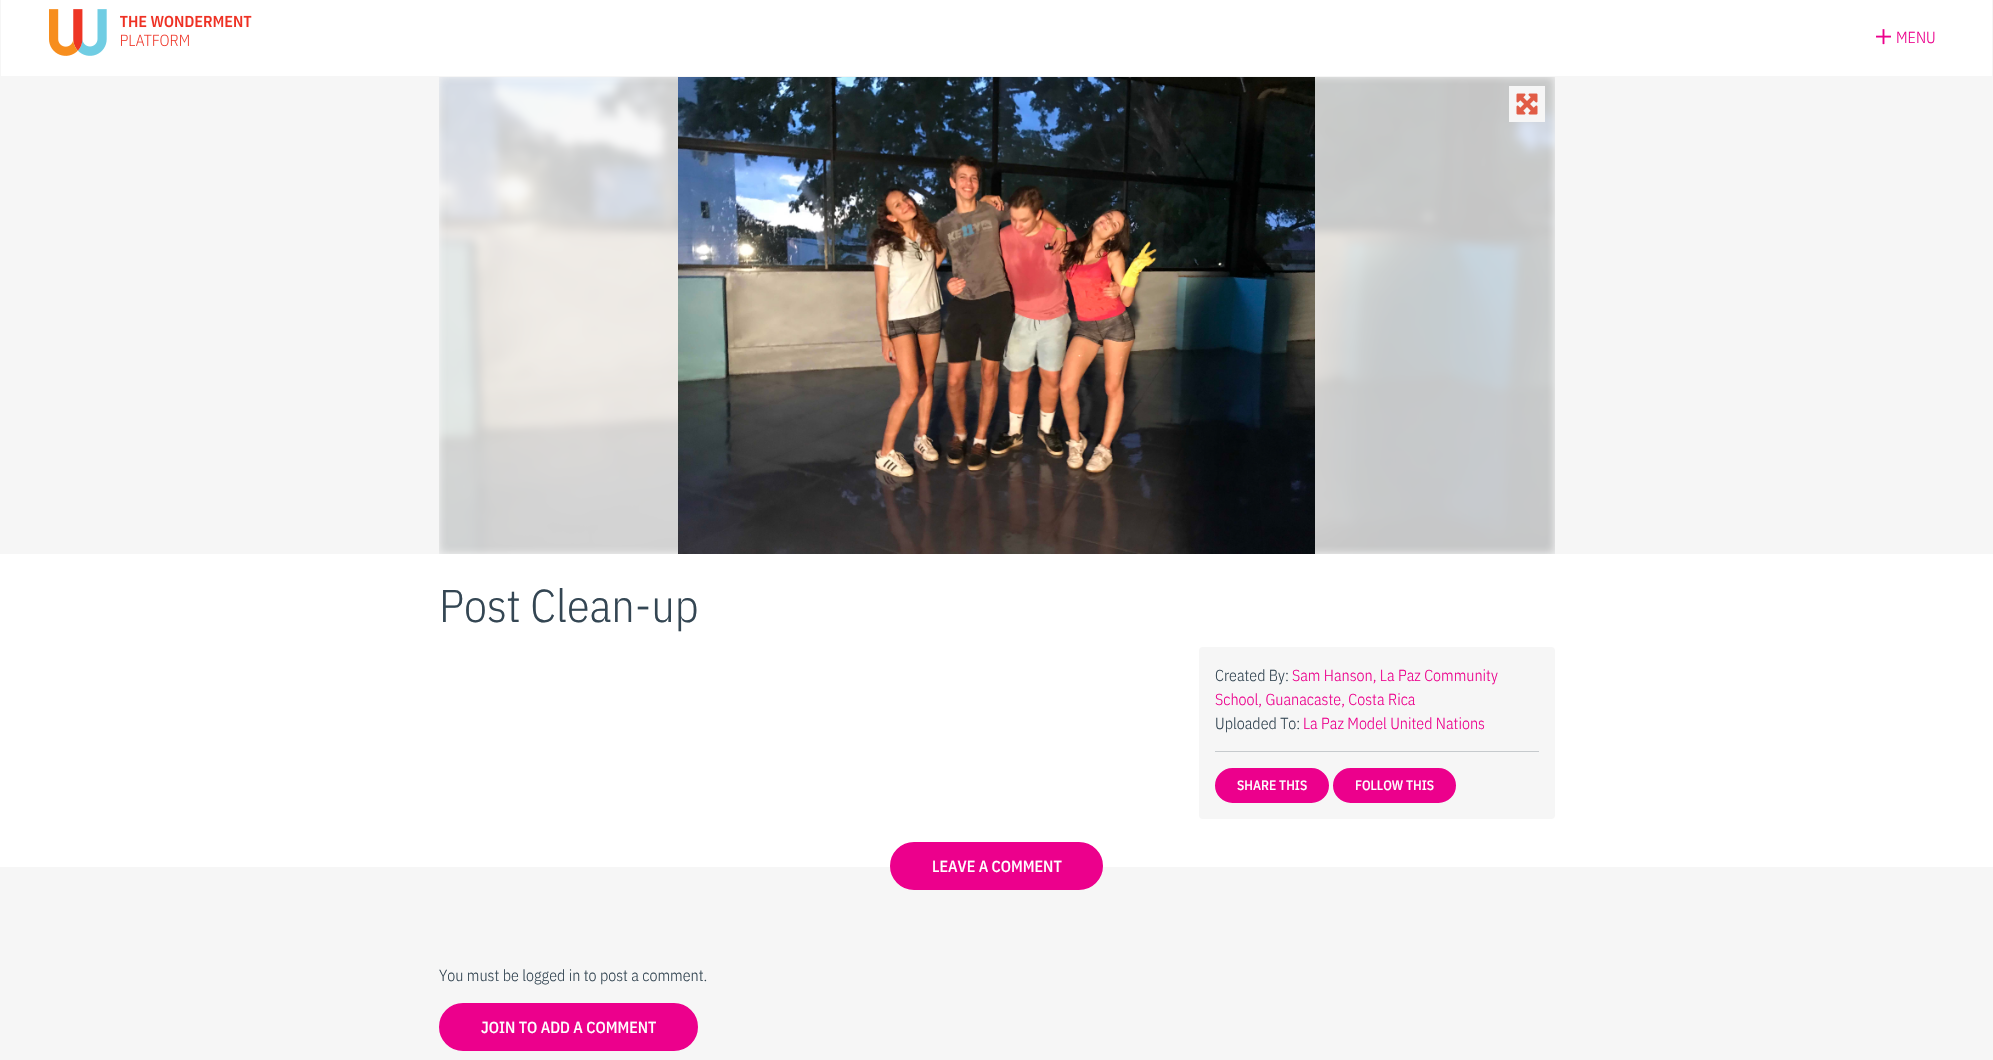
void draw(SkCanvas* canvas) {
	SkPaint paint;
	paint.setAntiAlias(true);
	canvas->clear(0xffffffff);
	paint.setStroke(true);
	paint.setStrokeWidth(1);
	paint.setColor(0xfff6f6f6);
	canvas->drawRect(SkRect::MakeXYWH(0.5, -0.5, 1992, 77), paint);
	canvas->drawImageRect(SkImages::DeferredFromEncodedData(SkData::MakeFromFileName("img1.png")), SkRect::MakeXYWH(49, 9, 203, 47), SkSamplingOptions());
	canvas->drawImageRect(SkImages::DeferredFromEncodedData(SkData::MakeFromFileName("img2.png")), SkRect::MakeXYWH(1876, 29, 15, 16), SkSamplingOptions());
	SkFont f1(fontMgr->matchFamilyStyle("IBM Plex Sans Condensed", SkFontStyle(300, SkFontStyle::kNormal_Width, SkFontStyle::kUpright_Slant)), 16);
	f1.setSubpixel(true);
	paint.setStroke(false);
	paint.setColor(0xffec008c);
	canvas->drawString("MENU", 1896, 43, f1, paint);
	paint.setColor(0xfff6f6f6);
	canvas->drawRect(SkRect::MakeXYWH(0, 77, 1993, 477), paint);
	canvas->drawImageRect(SkImages::DeferredFromEncodedData(SkData::MakeFromFileName("img3.png")), SkRect::MakeXYWH(439, 77, 1116, 477), SkSamplingOptions());
	canvas->drawImageRect(SkImages::DeferredFromEncodedData(SkData::MakeFromFileName("img4.png")), SkRect::MakeXYWH(678, 77, 637, 477), SkSamplingOptions());
	canvas->drawRect(SkRect::MakeXYWH(1509, 86, 36, 36), paint);
	canvas->drawImageRect(SkImages::DeferredFromEncodedData(SkData::MakeFromFileName("img5.png")), SkRect::MakeXYWH(1516, 93, 22, 22), SkSamplingOptions());
	SkFont f2(fontMgr->matchFamilyStyle("IBM Plex Sans Condensed", SkFontStyle(300, SkFontStyle::kNormal_Width, SkFontStyle::kUpright_Slant)), 46);
	f2.setSubpixel(true);
	paint.setColor(0xff344653);
	canvas->drawString("Post Clean-up", 439, 622, f2, paint);
	paint.setColor(0xfff6f6f6);
	canvas->drawRoundRect(SkRect::MakeXYWH(1199, 647, 356, 172), 4, 4, paint);
	paint.setColor(0xff344653);
	canvas->drawString("Created By:", 1215, 681, f1, paint);
	paint.setColor(0xffec008c);
	canvas->drawString("Sam Hanson, La Paz Community", 1292, 681, f1, paint);
	canvas->drawString("School, Guanacaste, Costa Rica", 1215, 705, f1, paint);
	paint.setColor(0xff344653);
	canvas->drawString("Uploaded To:", 1215, 729, f1, paint);
	paint.setColor(0xffec008c);
	canvas->drawString("La Paz Model United Nations", 1303, 729, f1, paint);
	paint.setColor(0xffc6cacd);
	canvas->drawRect(SkRect::MakeXYWH(1215, 751, 324, 1), paint);
	paint.setColor(0xffec008c);
	canvas->drawRoundRect(SkRect::MakeXYWH(1216, 769, 112, 33), 16.5, 16.5, paint);
	paint.setStroke(true);
	paint.setStrokeWidth(2);
	canvas->drawRoundRect(SkRect::MakeXYWH(1216, 769, 112, 33), 16.5, 16.5, paint);
	SkFont f3(fontMgr->matchFamilyStyle("IBM Plex Sans Condensed", SkFontStyle(500, SkFontStyle::kNormal_Width, SkFontStyle::kUpright_Slant)), 13.5);
	f3.setSubpixel(true);
	paint.setStroke(false);
	paint.setColor(0xffffffff);
	canvas->drawString("SHARE THIS", 1237, 790, f3, paint);
	paint.setColor(0xffec008c);
	canvas->drawRoundRect(SkRect::MakeXYWH(1334, 769, 121, 33), 16.5, 16.5, paint);
	paint.setStroke(true);
	canvas->drawRoundRect(SkRect::MakeXYWH(1334, 769, 121, 33), 16.5, 16.5, paint);
	paint.setStroke(false);
	paint.setColor(0xffffffff);
	canvas->drawString("FOLLOW THIS", 1355, 790, f3, paint);
	paint.setColor(0xfff6f6f6);
	canvas->drawRect(SkRect::MakeXYWH(0, 867, 1993, 193), paint);
	paint.setColor(0xffec008c);
	canvas->drawRoundRect(SkRect::MakeXYWH(891, 843, 211, 46), 23, 23, paint);
	paint.setStroke(true);
	canvas->drawRoundRect(SkRect::MakeXYWH(891, 843, 211, 46), 23, 23, paint);
	SkFont f4(fontMgr->matchFamilyStyle("IBM Plex Sans Condensed", SkFontStyle(500, SkFontStyle::kNormal_Width, SkFontStyle::kUpright_Slant)), 16);
	f4.setSubpixel(true);
	paint.setStroke(false);
	paint.setColor(0xffffffff);
	canvas->drawString("LEAVE A COMMENT", 932, 872, f4, paint);
	paint.setColor(0xff344653);
	canvas->drawString("You must be logged in to post a comment.", 439, 981, f1, paint);
	paint.setColor(0xffec008c);
	canvas->drawRoundRect(SkRect::MakeXYWH(440, 1004, 257, 46), 23, 23, paint);
	paint.setStroke(true);
	canvas->drawRoundRect(SkRect::MakeXYWH(440, 1004, 257, 46), 23, 23, paint);
	paint.setStroke(false);
	paint.setColor(0xffffffff);
	canvas->drawString("JOIN TO ADD A COMMENT", 481, 1033, f4, paint);
}
